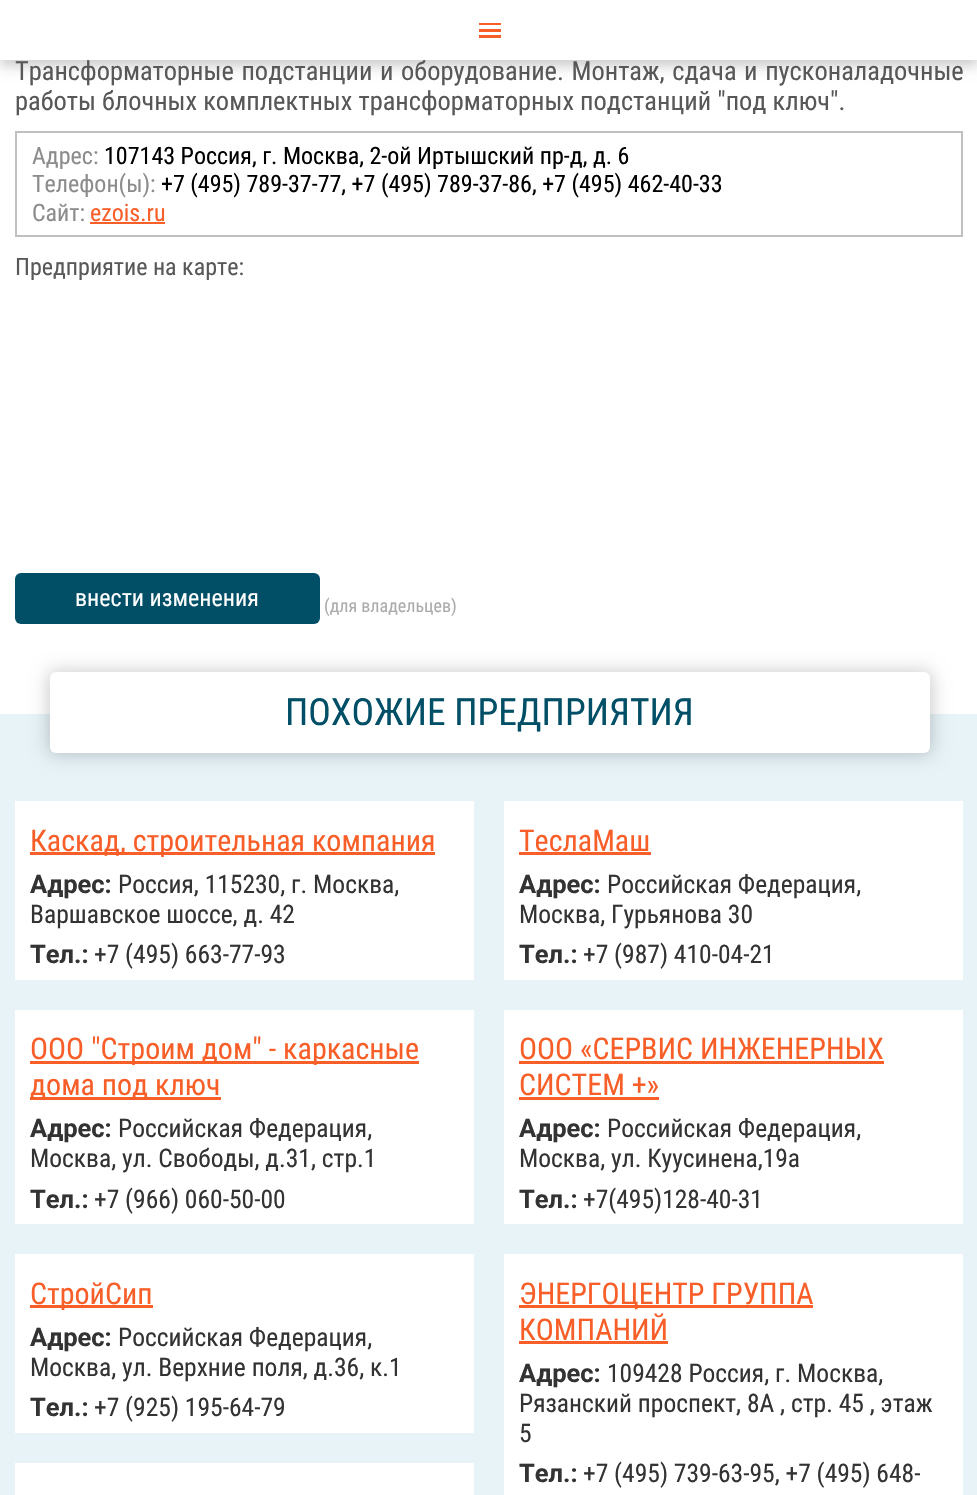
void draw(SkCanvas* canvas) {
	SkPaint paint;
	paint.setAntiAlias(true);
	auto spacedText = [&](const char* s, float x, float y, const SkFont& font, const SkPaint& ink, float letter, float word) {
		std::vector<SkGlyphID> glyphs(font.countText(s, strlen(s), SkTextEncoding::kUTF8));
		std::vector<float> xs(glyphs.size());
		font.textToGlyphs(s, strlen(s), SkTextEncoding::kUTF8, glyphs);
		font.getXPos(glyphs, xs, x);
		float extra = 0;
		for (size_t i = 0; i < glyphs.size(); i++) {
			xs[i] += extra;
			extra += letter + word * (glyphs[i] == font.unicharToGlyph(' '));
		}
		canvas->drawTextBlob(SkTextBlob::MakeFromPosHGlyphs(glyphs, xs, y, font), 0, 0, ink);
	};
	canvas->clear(0xffffffff);
	paint.setColor(0x33000000);
	paint.setMaskFilter(SkMaskFilter::MakeBlur(kNormal_SkBlurStyle, 6));
	canvas->drawRect(SkRect::MakeXYWH(0, 6, 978, 60), paint);
	paint.setMaskFilter(nullptr);
	paint.setColor(0xffffffff);
	canvas->drawRect(SkRect::MakeXYWH(0, 0, 977, 60), paint);
	paint.setColor(0xfff85e28);
	canvas->drawRect(SkRect::MakeXYWH(479, 23, 22, 2), paint);
	canvas->drawRect(SkRect::MakeXYWH(479, 35, 22, 3), paint);
	canvas->drawRect(SkRect::MakeXYWH(479, 29, 22, 3), paint);
	SkFont f1(fontMgr->matchFamilyStyle("Roboto Condensed", SkFontStyle::Normal()), 26.4);
	f1.setSubpixel(true);
	paint.setColor(0xff585858);
	spacedText("Трансформаторные подстанции и оборудование. Монтаж, сдача и пусконаладочные", 15, 80, f1, paint, 0, 1.5);
	canvas->drawString("работы блочных комплектных трансформаторных подстанций \"под ключ\".", 15, 110, f1, paint);
	paint.setStroke(true);
	paint.setStrokeWidth(2);
	paint.setColor(0xffc0c0c0);
	canvas->drawRect(SkRect::MakeXYWH(16, 132, 946, 104), paint);
	SkFont f2(fontMgr->matchFamilyStyle("Roboto Condensed", SkFontStyle::Normal()), 24);
	f2.setSubpixel(true);
	paint.setStroke(false);
	paint.setColor(0xff8c8c8c);
	canvas->drawString("Адрес:", 32, 164, f2, paint);
	paint.setColor(0xff000000);
	canvas->drawString("107143 Россия, г. Москва, 2-ой Иртышский пр-д, д. 6", 104, 164, f2, paint);
	paint.setColor(0xff8c8c8c);
	canvas->drawString("Телефон(ы):", 32, 192, f2, paint);
	paint.setColor(0xff000000);
	canvas->drawString("+7 (495) 789-37-77, +7 (495) 789-37-86, +7 (495) 462-40-33", 161, 192, f2, paint);
	paint.setColor(0xff8c8c8c);
	canvas->drawString("Сайт:", 32, 221, f2, paint);
	paint.setColor(0xfff85e28);
	canvas->drawString("ezois.ru", 90, 221, f2, paint);
	canvas->drawRect(SkRect::MakeXYWH(90, 222, 75, 2), paint);
	paint.setColor(0xff585858);
	canvas->drawString("Предприятие на карте:", 15, 275, f2, paint);
	paint.setColor(0xff004f66);
	canvas->drawRoundRect(SkRect::MakeXYWH(15, 573, 305, 51), 6, 6, paint);
	paint.setColor(0xffffffff);
	canvas->drawString("внести изменения", 75, 606, f2, paint);
	SkFont f3(fontMgr->matchFamilyStyle("Roboto Condensed", SkFontStyle::Normal()), 18);
	f3.setSubpixel(true);
	paint.setColor(0xffababab);
	canvas->drawString("(для владельцев)", 324, 612, f3, paint);
	paint.setColor(0xffe7f3f7);
	canvas->drawRect(SkRect::MakeXYWH(0, 714, 977, 781), paint);
	paint.setColor(0x33000000);
	paint.setMaskFilter(SkMaskFilter::MakeBlur(kNormal_SkBlurStyle, 9));
	canvas->drawRoundRect(SkRect::MakeXYWH(48, 671, 884, 84), 8, 8, paint);
	paint.setMaskFilter(nullptr);
	paint.setColor(0xffffffff);
	canvas->drawRoundRect(SkRect::MakeXYWH(50, 672, 880, 81), 6, 6, paint);
	SkFont f4(fontMgr->matchFamilyStyle("Roboto Condensed", SkFontStyle::Normal()), 37.5);
	f4.setSubpixel(true);
	paint.setColor(0xff004f66);
	canvas->drawString("ПОХОЖИЕ ПРЕДПРИЯТИЯ", 285, 725, f4, paint);
	paint.setColor(0xffffffff);
	canvas->drawRect(SkRect::MakeXYWH(15, 801, 459, 179), paint);
	paint.setColor(0xfff85e28);
	canvas->drawRect(SkRect::MakeXYWH(30, 852, 405, 3), paint);
	SkFont f5(fontMgr->matchFamilyStyle("Roboto Condensed", SkFontStyle::Normal()), 30);
	f5.setSubpixel(true);
	canvas->drawString("Каскад, строительная компания", 30, 851, f5, paint);
	SkFont f6(fontMgr->matchFamilyStyle("Roboto", SkFontStyle::Bold()), 25.5);
	f6.setSubpixel(true);
	paint.setColor(0xff333333);
	canvas->drawString("Адрес:", 30, 893, f6, paint);
	SkFont f7(fontMgr->matchFamilyStyle("Roboto Condensed", SkFontStyle::Normal()), 25.5);
	f7.setSubpixel(true);
	canvas->drawString("Россия, 115230, г. Москва,", 118, 893, f7, paint);
	canvas->drawString("Варшавское шоссе, д. 42", 30, 923, f7, paint);
	canvas->drawString("Тел.:", 30, 963, f6, paint);
	canvas->drawString("+7 (495) 663-77-93", 94, 963, f7, paint);
	paint.setColor(0xffffffff);
	canvas->drawRect(SkRect::MakeXYWH(504, 801, 459, 179), paint);
	paint.setColor(0xfff85e28);
	canvas->drawString("ТеслаМаш", 519, 851, f5, paint);
	canvas->drawRect(SkRect::MakeXYWH(519, 852, 132, 3), paint);
	paint.setColor(0xff333333);
	canvas->drawString("Адрес:", 519, 893, f6, paint);
	canvas->drawString("Российcкая Федерация,", 607, 893, f7, paint);
	canvas->drawString("Москва, Гурьянова 30", 519, 923, f7, paint);
	canvas->drawString("Тел.:", 519, 963, f6, paint);
	canvas->drawString("+7 (987) 410-04-21", 583, 963, f7, paint);
	paint.setColor(0xffffffff);
	canvas->drawRect(SkRect::MakeXYWH(15, 1010, 459, 214), paint);
	paint.setColor(0xfff85e28);
	canvas->drawRect(SkRect::MakeXYWH(30, 1061, 389, 3), paint);
	canvas->drawString("ООО \"Строим дом\" - каркасные", 30, 1059, f5, paint);
	canvas->drawRect(SkRect::MakeXYWH(30, 1097, 191, 3), paint);
	canvas->drawString("дома под ключ", 30, 1095, f5, paint);
	paint.setColor(0xff333333);
	canvas->drawString("Адрес:", 30, 1137, f6, paint);
	canvas->drawString("Российcкая Федерация,", 118, 1137, f7, paint);
	canvas->drawString("Москва, ул. Свободы, д.31, стр.1", 30, 1167, f7, paint);
	canvas->drawString("Тел.:", 30, 1208, f6, paint);
	canvas->drawString("+7 (966) 060-50-00", 94, 1208, f7, paint);
	paint.setColor(0xffffffff);
	canvas->drawRect(SkRect::MakeXYWH(504, 1010, 459, 214), paint);
	paint.setColor(0xfff85e28);
	canvas->drawString("ООО «СЕРВИС ИНЖЕНЕРНЫХ", 519, 1059, f5, paint);
	canvas->drawRect(SkRect::MakeXYWH(519, 1061, 365, 3), paint);
	canvas->drawString("СИСТЕМ +»", 519, 1095, f5, paint);
	canvas->drawRect(SkRect::MakeXYWH(519, 1097, 140, 3), paint);
	paint.setColor(0xff333333);
	canvas->drawString("Адрес:", 519, 1137, f6, paint);
	canvas->drawString("Российcкая Федерация,", 607, 1137, f7, paint);
	canvas->drawString("Москва, ул. Куусинена,19а", 519, 1167, f7, paint);
	canvas->drawString("Тел.:", 519, 1208, f6, paint);
	canvas->drawString("+7(495)128-40-31", 583, 1208, f7, paint);
	paint.setColor(0xffffffff);
	canvas->drawRect(SkRect::MakeXYWH(15, 1254, 459, 179), paint);
	paint.setColor(0xfff85e28);
	canvas->drawRect(SkRect::MakeXYWH(30, 1305, 123, 3), paint);
	canvas->drawString("CтройСип", 30, 1304, f5, paint);
	paint.setColor(0xff333333);
	canvas->drawString("Адрес:", 30, 1346, f6, paint);
	canvas->drawString("Российcкая Федерация,", 118, 1346, f7, paint);
	canvas->drawString("Москва, ул. Верхние поля, д.36, к.1", 30, 1376, f7, paint);
	canvas->drawString("Тел.:", 30, 1416, f6, paint);
	canvas->drawString("+7 (925) 195-64-79", 94, 1416, f7, paint);
	paint.setColor(0xffffffff);
	canvas->drawRect(SkRect::MakeXYWH(504, 1254, 459, 241), paint);
	paint.setColor(0xfff85e28);
	canvas->drawRect(SkRect::MakeXYWH(519, 1305, 294, 3), paint);
	canvas->drawString("ЭНЕРГОЦЕНТР ГРУППА", 519, 1304, f5, paint);
	canvas->drawString("КОМПАНИЙ", 519, 1340, f5, paint);
	canvas->drawRect(SkRect::MakeXYWH(519, 1341, 149, 3), paint);
	paint.setColor(0xff333333);
	canvas->drawString("Адрес:", 519, 1382, f6, paint);
	canvas->drawString("109428 Россия, г. Москва,", 607, 1382, f7, paint);
	canvas->drawString("Рязанский проспект, 8А , стр. 45 , этаж", 519, 1412, f7, paint);
	canvas->drawString("5", 519, 1442, f7, paint);
	canvas->drawString("Тел.:", 519, 1482, f6, paint);
	canvas->drawString("+7 (495) 739-63-95, +7 (495) 648-", 583, 1482, f7, paint);
	paint.setColor(0xffffffff);
	canvas->drawRect(SkRect::MakeXYWH(15, 1463, 459, 32), paint);
}
